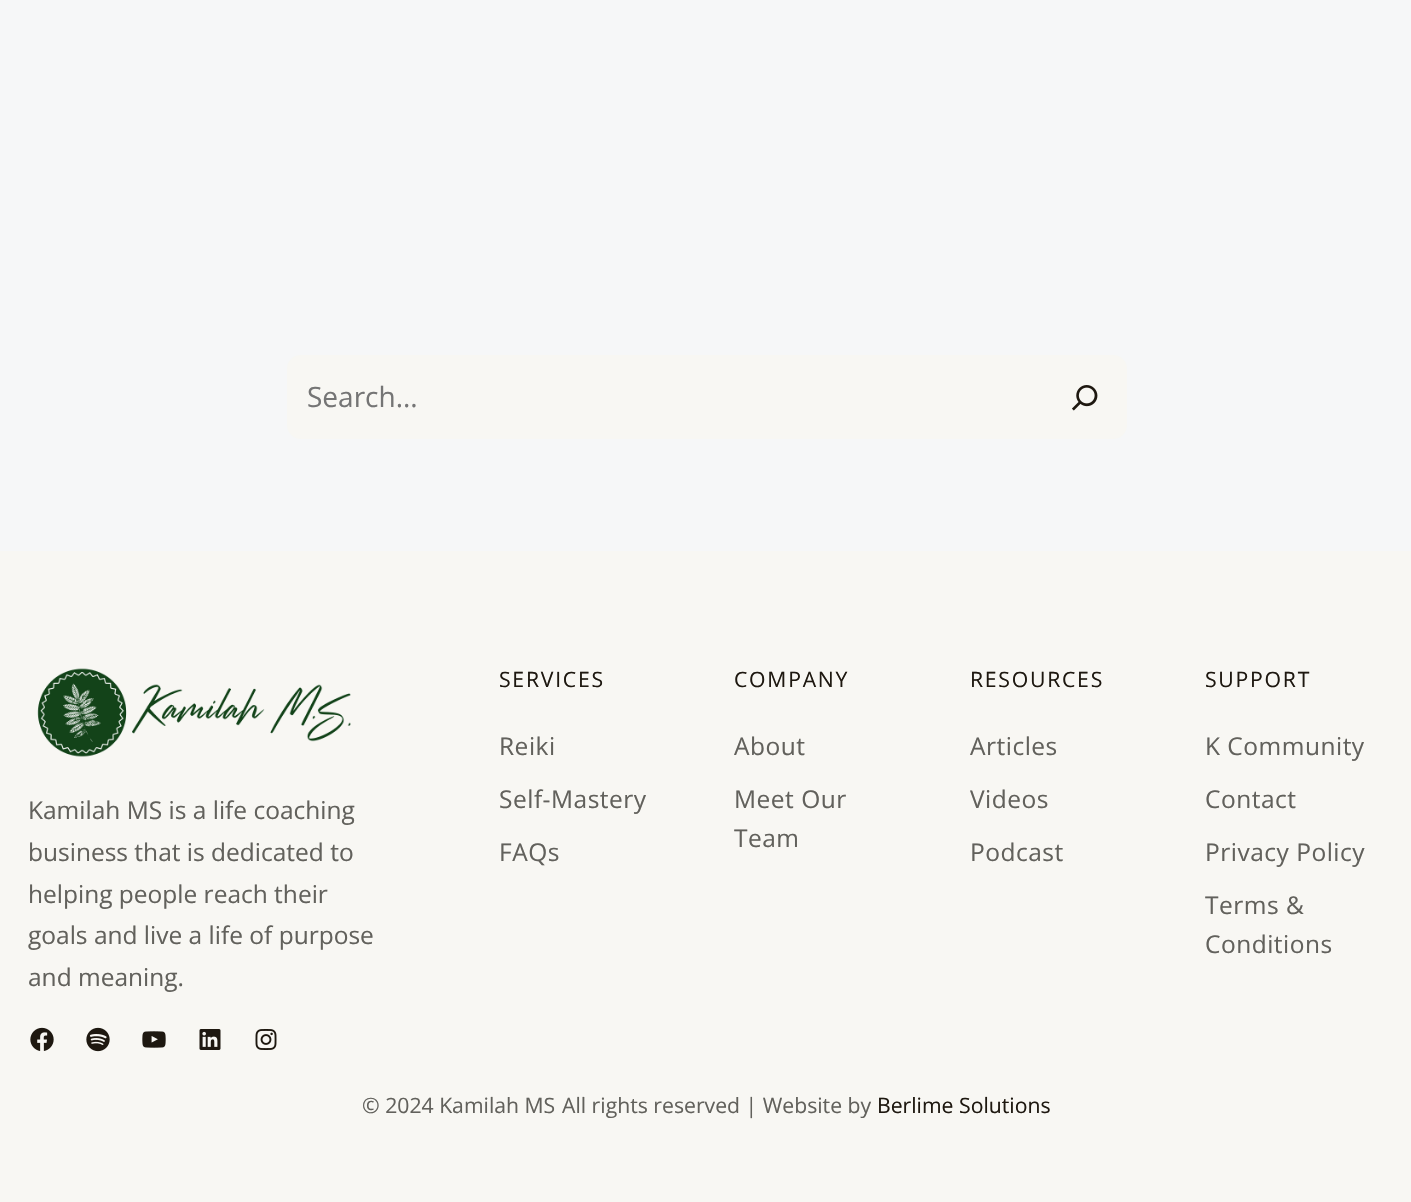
void draw(SkCanvas* canvas) {
	SkPaint paint;
	paint.setAntiAlias(true);
	auto spacedText = [&](const char* s, float x, float y, const SkFont& font, const SkPaint& ink, float letter, float word) {
		std::vector<SkGlyphID> glyphs(font.countText(s, strlen(s), SkTextEncoding::kUTF8));
		std::vector<float> xs(glyphs.size());
		font.textToGlyphs(s, strlen(s), SkTextEncoding::kUTF8, glyphs);
		font.getXPos(glyphs, xs, x);
		float extra = 0;
		for (size_t i = 0; i < glyphs.size(); i++) {
			xs[i] += extra;
			extra += letter + word * (glyphs[i] == font.unicharToGlyph(' '));
		}
		canvas->drawTextBlob(SkTextBlob::MakeFromPosHGlyphs(glyphs, xs, y, font), 0, 0, ink);
	};
	canvas->clear(0xfff8f7f3);
	paint.setColor(0xfff6f7f8);
	canvas->drawRect(SkRect::MakeXYWH(0, 0, 1411, 551), paint);
	paint.setColor(0xfff8f7f3);
	canvas->drawRoundRect(SkRect::MakeXYWH(287, 355, 840, 84), 14, 14, paint);
	SkFont f1(fontMgr->matchFamilyStyle("Open Sans", SkFontStyle::Normal()), 28);
	f1.setSubpixel(true);
	paint.setColor(0xff757575);
	canvas->drawString("Search...", 307, 407, f1, paint);
	canvas->drawImageRect(SkImages::DeferredFromEncodedData(SkData::MakeFromFileName("img1.png")), SkRect::MakeXYWH(1072, 385, 26, 26), SkSamplingOptions());
	canvas->drawImageRect(SkImages::DeferredFromEncodedData(SkData::MakeFromFileName("img2.png")), SkRect::MakeXYWH(37, 668, 314, 89), SkSamplingOptions());
	SkFont f2(fontMgr->matchFamilyStyle("Open Sans", SkFontStyle::Normal()), 24.5);
	f2.setSubpixel(true);
	paint.setColor(0xff62615c);
	canvas->drawString("Kamilah MS is a life coaching", 28, 819, f2, paint);
	canvas->drawString("business that is dedicated to", 28, 861, f2, paint);
	canvas->drawString("helping people reach their", 28, 903, f2, paint);
	canvas->drawString("goals and live a life of purpose", 28, 944, f2, paint);
	canvas->drawString("and meaning.", 28, 986, f2, paint);
	canvas->drawImageRect(SkImages::DeferredFromEncodedData(SkData::MakeFromFileName("img3.png")), SkRect::MakeXYWH(30, 1027, 24, 24), SkSamplingOptions());
	canvas->drawImageRect(SkImages::DeferredFromEncodedData(SkData::MakeFromFileName("img4.png")), SkRect::MakeXYWH(86, 1027, 24, 25), SkSamplingOptions());
	canvas->drawImageRect(SkImages::DeferredFromEncodedData(SkData::MakeFromFileName("img5.png")), SkRect::MakeXYWH(142, 1031, 24, 17), SkSamplingOptions());
	canvas->drawImageRect(SkImages::DeferredFromEncodedData(SkData::MakeFromFileName("img6.png")), SkRect::MakeXYWH(199, 1029, 22, 21), SkSamplingOptions());
	canvas->drawImageRect(SkImages::DeferredFromEncodedData(SkData::MakeFromFileName("img7.png")), SkRect::MakeXYWH(255, 1029, 22, 21), SkSamplingOptions());
	SkFont f3(fontMgr->matchFamilyStyle("Open Sans", SkFontStyle::Normal()), 21.2);
	f3.setSubpixel(true);
	paint.setColor(0xff1e1810);
	spacedText("SERVICES", 499, 687, f3, paint, 1.75, 0);
	paint.setColor(0xff62615c);
	spacedText("Reiki", 499, 755, f2, paint, 0.5, 0);
	spacedText("Self-Mastery", 499, 808, f2, paint, 0.5, 0);
	spacedText("FAQs", 499, 861, f2, paint, 0.5, 0);
	paint.setColor(0xff1e1810);
	spacedText("COMPANY", 734, 687, f3, paint, 1.75, 0);
	paint.setColor(0xff62615c);
	spacedText("About", 734, 755, f2, paint, 0.5, 0);
	spacedText("Meet Our", 734, 808, f2, paint, 0.5, 0);
	spacedText("Team", 734, 847, f2, paint, 0.5, 0);
	paint.setColor(0xff1e1810);
	spacedText("RESOURCES", 970, 687, f3, paint, 1.75, 0);
	paint.setColor(0xff62615c);
	spacedText("Articles", 970, 755, f2, paint, 0.5, 0);
	spacedText("Videos", 970, 808, f2, paint, 0.5, 0);
	spacedText("Podcast", 970, 861, f2, paint, 0.5, 0);
	paint.setColor(0xff1e1810);
	spacedText("SUPPORT", 1205, 687, f3, paint, 1.75, 0);
	paint.setColor(0xff62615c);
	spacedText("K Community", 1205, 755, f2, paint, 0.5, 0);
	spacedText("Contact", 1205, 808, f2, paint, 0.5, 0);
	spacedText("Privacy Policy", 1205, 861, f2, paint, 0.5, 0);
	spacedText("Terms &", 1205, 914, f2, paint, 0.5, 0);
	spacedText("Conditions", 1205, 953, f2, paint, 0.5, 0);
	canvas->drawString("© 2024 Kamilah MS", 362, 1113, f3, paint);
	canvas->drawString("All rights reserved | Website by", 562, 1113, f3, paint);
	paint.setColor(0xff1e1810);
	canvas->drawString("Berlime Solutions", 877, 1113, f3, paint);
}
